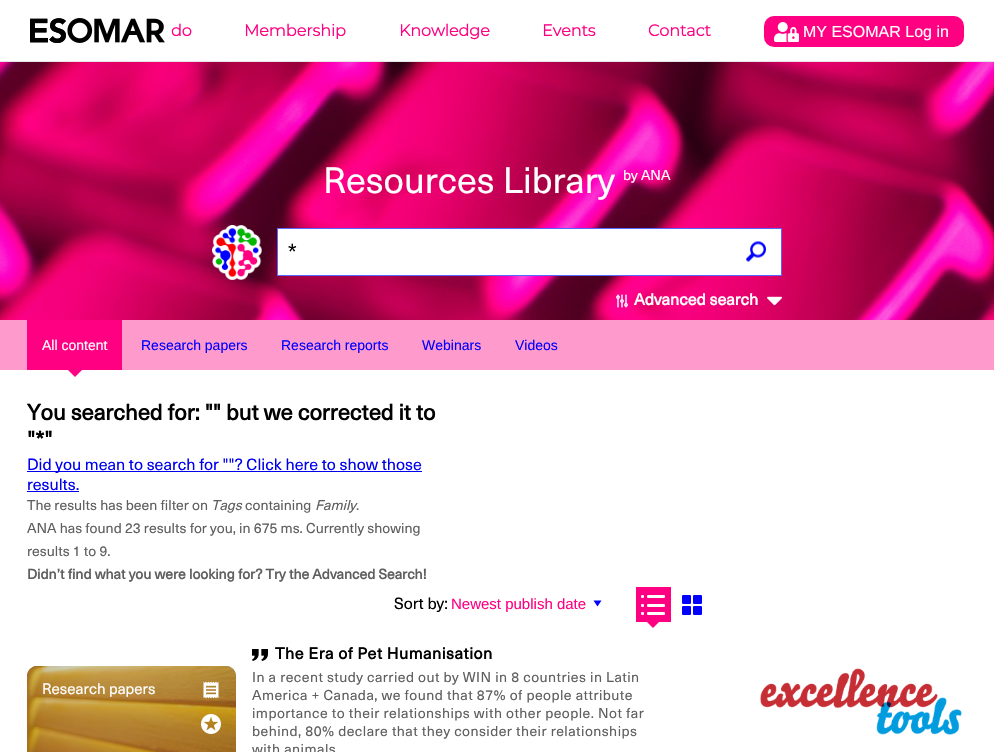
void draw(SkCanvas* canvas) {
	SkPaint paint;
	paint.setAntiAlias(true);
	auto spacedText = [&](const char* s, float x, float y, const SkFont& font, const SkPaint& ink, float letter, float word) {
		std::vector<SkGlyphID> glyphs(font.countText(s, strlen(s), SkTextEncoding::kUTF8));
		std::vector<float> xs(glyphs.size());
		font.textToGlyphs(s, strlen(s), SkTextEncoding::kUTF8, glyphs);
		font.getXPos(glyphs, xs, x);
		float extra = 0;
		for (size_t i = 0; i < glyphs.size(); i++) {
			xs[i] += extra;
			extra += letter + word * (glyphs[i] == font.unicharToGlyph(' '));
		}
		canvas->drawTextBlob(SkTextBlob::MakeFromPosHGlyphs(glyphs, xs, y, font), 0, 0, ink);
	};
	auto svgPath = [&](const char* data, bool evenOdd = false) {
		SkPath result = *SkParsePath::FromSVGString(data);
		if (evenOdd) result.setFillType(SkPathFillType::kEvenOdd);
		return result;
	};
	canvas->clear(0xffffffff);
	canvas->drawImageRect(SkImages::DeferredFromEncodedData(SkData::MakeFromFileName("img1.png")), SkRect::MakeXYWH(0, 62, 994, 258), SkSamplingOptions());
	canvas->drawImageRect(SkImages::DeferredFromEncodedData(SkData::MakeFromFileName("img2.png")), SkRect::MakeXYWH(30, 18, 135, 25), SkSamplingOptions());
	paint.setColor(0xffe6e6e6);
	canvas->drawRect(SkRect::MakeXYWH(0, 61, 994, 1), paint);
	SkFont f1(fontMgr->matchFamilyStyle("Montserrat", SkFontStyle::Bold()), 16);
	f1.setSubpixel(true);
	paint.setColor(0xffff0082);
	canvas->drawString("do", 171, 36, f1, paint);
	canvas->drawString("Membership", 244, 36, f1, paint);
	canvas->drawString("Knowledge", 399, 36, f1, paint);
	canvas->drawString("Events", 542, 36, f1, paint);
	canvas->drawString("Contact", 648, 36, f1, paint);
	canvas->drawRoundRect(SkRect::MakeXYWH(764, 16, 200, 31), 10, 10, paint);
	canvas->drawImageRect(SkImages::DeferredFromEncodedData(SkData::MakeFromFileName("img3.png")), SkRect::MakeXYWH(774, 22, 25, 20), SkSamplingOptions());
	SkFont f2(fontMgr->matchFamilyStyle("Liberation Sans", SkFontStyle::Normal()), 16);
	f2.setSubpixel(true);
	paint.setColor(0xffffffff);
	canvas->drawString("MY ESOMAR Log in", 803, 37, f2, paint);
	SkFont f3(fontMgr->matchFamilyStyle("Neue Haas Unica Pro", SkFontStyle::Normal()), 36);
	f3.setSubpixel(true);
	canvas->drawString("Resources Library", 323, 193, f3, paint);
	SkFont f4(fontMgr->matchFamilyStyle("Neue Haas Unica Pro", SkFontStyle::Normal()), 14);
	f4.setSubpixel(true);
	canvas->drawString("by ANA", 623, 180, f4, paint);
	canvas->drawImageRect(SkImages::DeferredFromEncodedData(SkData::MakeFromFileName("img4.png")), SkRect::MakeXYWH(212, 225, 50, 55), SkSamplingOptions());
	canvas->drawRect(SkRect::MakeXYWH(277.5, 228.5, 504, 47), paint);
	paint.setStroke(true);
	paint.setStrokeWidth(1);
	paint.setColor(0xff5766ff);
	canvas->drawRect(SkRect::MakeXYWH(277.5, 228.5, 504, 47), paint);
	SkFont f5(fontMgr->matchFamilyStyle("Liberation Sans", SkFontStyle::Normal()), 22);
	f5.setSubpixel(true);
	paint.setStroke(false);
	paint.setColor(0xff000000);
	canvas->drawString("*", 288, 259, f5, paint);
	canvas->drawImageRect(SkImages::DeferredFromEncodedData(SkData::MakeFromFileName("img5.png")), SkRect::MakeXYWH(746, 241, 20, 21), SkSamplingOptions());
	canvas->drawImageRect(SkImages::DeferredFromEncodedData(SkData::MakeFromFileName("img6.png")), SkRect::MakeXYWH(616, 294, 12, 14), SkSamplingOptions());
	SkFont f6(fontMgr->matchFamilyStyle("Neue Haas Unica Pro", SkFontStyle::Bold()), 16);
	f6.setSubpixel(true);
	paint.setColor(0xffffffff);
	canvas->drawString("Advanced search", 634, 305, f6, paint);
	canvas->drawImageRect(SkImages::DeferredFromEncodedData(SkData::MakeFromFileName("img7.png")), SkRect::MakeXYWH(767, 296, 15, 10), SkSamplingOptions());
	paint.setColor(0xfffe9bcc);
	canvas->drawRect(SkRect::MakeXYWH(0, 320, 994, 50), paint);
	paint.setColor(0xffff0082);
	canvas->drawRect(SkRect::MakeXYWH(27, 320, 95, 50), paint);
	SkFont f7(fontMgr->matchFamilyStyle("Liberation Sans", SkFontStyle::Normal()), 14);
	f7.setSubpixel(true);
	paint.setColor(0xffffffff);
	canvas->drawString("All content", 42, 350, f7, paint);
	paint.setColor(0xffff0082);
	canvas->drawPath(svgPath("M68 370H82L75 377Z"), paint);
	paint.setColor(0xff0000ff);
	canvas->drawString("Research papers", 141, 350, f7, paint);
	canvas->drawString("Research reports", 281, 350, f7, paint);
	canvas->drawString("Webinars", 422, 350, f7, paint);
	canvas->drawString("Videos", 515, 350, f7, paint);
	SkFont f8(fontMgr->matchFamilyStyle("Neue Haas Unica Pro", SkFontStyle::Bold()), 22);
	f8.setSubpixel(true);
	paint.setColor(0xff000000);
	canvas->drawString("You searched for: \"\" but we corrected it to", 27, 420, f8, paint);
	canvas->drawString("\"*\"", 27, 447, f8, paint);
	paint.setColor(0xff0000ee);
	canvas->drawRect(SkRect::MakeXYWH(27, 471, 395, 1), paint);
	SkFont f9(fontMgr->matchFamilyStyle("Neue Haas Unica Pro", SkFontStyle::Normal()), 16);
	f9.setSubpixel(true);
	canvas->drawString("Did you mean to search for \"\"? Click here to show those", 27, 470, f9, paint);
	canvas->drawString("results.", 27, 490, f9, paint);
	canvas->drawRect(SkRect::MakeXYWH(27, 491, 52, 1), paint);
	paint.setColor(0xff5f5f5f);
	canvas->drawString("The results has been filter on", 27, 510, f4, paint);
	SkFont f10(fontMgr->matchFamilyStyle("Neue Haas Unica Pro", SkFontStyle::Italic()), 14);
	f10.setSubpixel(true);
	canvas->drawString("Tags", 211, 510, f10, paint);
	canvas->drawString("containing", 245, 510, f4, paint);
	canvas->drawString("Family", 315, 510, f10, paint);
	canvas->drawString(".", 356, 510, f4, paint);
	canvas->drawString("ANA has found 23 results for you, in 675 ms. Currently showing", 27, 533, f4, paint);
	canvas->drawString("results 1 to 9.", 27, 556, f4, paint);
	SkFont f11(fontMgr->matchFamilyStyle("Neue Haas Unica Pro", SkFontStyle::Bold()), 14);
	f11.setSubpixel(true);
	canvas->drawString("Didn’t find what you were looking for? Try the Advanced Search!", 27, 579, f11, paint);
	paint.setColor(0xff000000);
	canvas->drawString("Sort by:", 394, 609, f9, paint);
	canvas->drawImageRect(SkImages::DeferredFromEncodedData(SkData::MakeFromFileName("img8.png")), SkRect::MakeXYWH(593, 600, 9, 7), SkSamplingOptions());
	SkFont f12(fontMgr->matchFamilyStyle("Liberation Sans", SkFontStyle::Normal()), 15);
	f12.setSubpixel(true);
	paint.setColor(0xffff0082);
	canvas->drawString("Newest publish date", 451, 609, f12, paint);
	canvas->drawRect(SkRect::MakeXYWH(636, 587, 35, 35), paint);
	canvas->drawImageRect(SkImages::DeferredFromEncodedData(SkData::MakeFromFileName("img9.png")), SkRect::MakeXYWH(641, 595, 24, 20), SkSamplingOptions());
	canvas->drawPath(svgPath("M647 622H659L653 628Z"), paint);
	canvas->drawImageRect(SkImages::DeferredFromEncodedData(SkData::MakeFromFileName("img10.png")), SkRect::MakeXYWH(682, 595, 20, 20), SkSamplingOptions());
	paint.setColor(0xff5f5f5f);
	canvas->drawRoundRect(SkRect::MakeXYWH(27, 666, 209, 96), 10, 10, paint);
	canvas->drawImageRect(SkImages::DeferredFromEncodedData(SkData::MakeFromFileName("img11.png")), SkRect::MakeXYWH(27, 666, 209, 86), SkSamplingOptions());
	paint.setColor(0x33000000);
	canvas->drawRoundRect(SkRect::MakeXYWH(27, 666, 209, 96), 10, 10, paint);
	SkFont f13(fontMgr->matchFamilyStyle("Neue Haas Unica Pro", SkFontStyle::Normal()), 15);
	f13.setSubpixel(true);
	paint.setColor(0xffffffff);
	canvas->drawString("Research papers", 42, 694, f13, paint);
	canvas->drawImageRect(SkImages::DeferredFromEncodedData(SkData::MakeFromFileName("img12.png")), SkRect::MakeXYWH(203, 681, 16, 18), SkSamplingOptions());
	canvas->drawImageRect(SkImages::DeferredFromEncodedData(SkData::MakeFromFileName("img13.png")), SkRect::MakeXYWH(201, 714, 20, 20), SkSamplingOptions());
	canvas->drawImageRect(SkImages::DeferredFromEncodedData(SkData::MakeFromFileName("img14.png")), SkRect::MakeXYWH(252, 649, 16, 12), SkSamplingOptions());
	paint.setColor(0xff000000);
	spacedText("The Era of Pet Humanisation", 275, 659, f6, paint, 0.5, 0);
	paint.setColor(0xff5f5f5f);
	spacedText("In a recent study carried out by WIN in 8 countries in Latin", 252, 682, f4, paint, 0.45, 0);
	spacedText("America + Canada, we found that 87% of people attribute", 252, 700, f4, paint, 0.45, 0);
	spacedText("importance to their relationships with other people. Not far", 252, 718, f4, paint, 0.45, 0);
	spacedText("behind, 80% declare that they consider their relationships", 252, 736, f4, paint, 0.45, 0);
	spacedText("with animals", 252, 754, f4, paint, 0.45, 0);
	canvas->drawImageRect(SkImages::DeferredFromEncodedData(SkData::MakeFromFileName("img15.png")), SkRect::MakeXYWH(760, 668, 202, 67), SkSamplingOptions());
}
